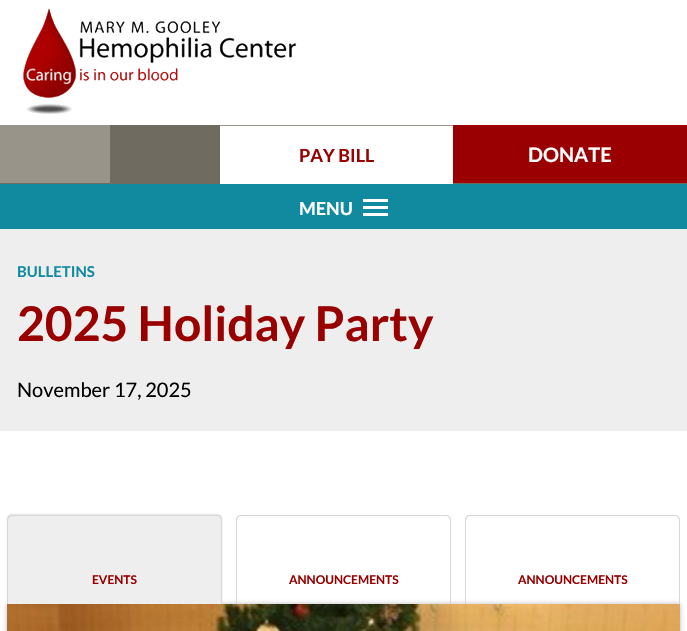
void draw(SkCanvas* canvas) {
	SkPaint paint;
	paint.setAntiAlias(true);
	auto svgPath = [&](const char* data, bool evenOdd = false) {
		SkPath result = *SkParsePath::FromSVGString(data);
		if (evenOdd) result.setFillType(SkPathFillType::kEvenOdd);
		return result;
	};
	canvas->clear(0xffeeeeee);
	paint.setColor(0xffffffff);
	canvas->drawRect(SkRect::MakeXYWH(0, 0, 687, 125), paint);
	canvas->drawImageRect(SkImages::DeferredFromEncodedData(SkData::MakeFromFileName("img1.png")), SkRect::MakeXYWH(22, 8, 275, 107), SkSamplingOptions());
	paint.setColor(0xff6f6b61);
	canvas->drawRect(SkRect::MakeXYWH(0, 183, 687, 1), paint);
	paint.setColor(0xff999489);
	canvas->drawRect(SkRect::MakeXYWH(0, 125, 110, 58), paint);
	paint.setColor(0xff6f6b61);
	canvas->drawRect(SkRect::MakeXYWH(110, 125, 110, 58), paint);
	paint.setColor(0xffffffff);
	canvas->drawRect(SkRect::MakeXYWH(220, 126, 233, 58), paint);
	paint.setColor(0xff999489);
	canvas->drawRect(SkRect::MakeXYWH(220, 125, 233, 1), paint);
	SkFont f1(fontMgr->matchFamilyStyle("Lato", SkFontStyle::Bold()), 18);
	f1.setSubpixel(true);
	paint.setColor(0xff990000);
	canvas->drawString("PAY BILL", 299, 162, f1, paint);
	paint.setColor(0xff9a0001);
	canvas->drawRect(SkRect::MakeXYWH(453, 125, 234, 58), paint);
	SkFont f2(fontMgr->matchFamilyStyle("Lato", SkFontStyle::Bold()), 20);
	f2.setSubpixel(true);
	paint.setColor(0xffffffff);
	canvas->drawString("DONATE", 528, 162, f2, paint);
	paint.setColor(0xff118aa0);
	canvas->drawRect(SkRect::MakeXYWH(0, 184, 687, 45), paint);
	paint.setColor(0xffffffff);
	canvas->drawRect(SkRect::MakeXYWH(363, 199, 25, 3), paint);
	canvas->drawString("MENU", 299, 215, f1, paint);
	canvas->drawRect(SkRect::MakeXYWH(363, 206, 25, 3), paint);
	canvas->drawRect(SkRect::MakeXYWH(363, 213, 25, 3), paint);
	SkFont f3(fontMgr->matchFamilyStyle("Lato", SkFontStyle::Bold()), 15);
	f3.setSubpixel(true);
	paint.setColor(0xff118aa0);
	canvas->drawString("BULLETINS", 17, 277, f3, paint);
	SkFont f4(fontMgr->matchFamilyStyle("Lato", SkFontStyle::Bold()), 48);
	f4.setSubpixel(true);
	paint.setColor(0xff990000);
	canvas->drawString("2025 Holiday Party", 17, 341, f4, paint);
	SkFont f5(fontMgr->matchFamilyStyle("Lato", SkFontStyle::Normal()), 20);
	f5.setSubpixel(true);
	paint.setColor(0xff000000);
	canvas->drawString("November 17, 2025", 17, 397, f5, paint);
	paint.setColor(0xffffffff);
	canvas->drawRect(SkRect::MakeXYWH(0, 431, 687, 200), paint);
	paint.setColor(0x26363636);
	paint.setMaskFilter(SkMaskFilter::MakeBlur(kNormal_SkBlurStyle, 1));
	canvas->drawRoundRect(SkRect::MakeXYWH(7, 514, 215, 89), 5, 5, paint);
	paint.setMaskFilter(nullptr);
	paint.setColor(0x59363636);
	paint.setMaskFilter(SkMaskFilter::MakeBlur(kNormal_SkBlurStyle, 2.5));
	canvas->drawRect(SkRect::MakeXYWH(7, 604, 673, 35), paint);
	paint.setMaskFilter(nullptr);
	paint.setColor(0xffeeeeee);
	canvas->drawPath(svgPath("M12 516H217C219 516 221 518 221 520V604H8V520C8 518 10 516 12 516Z"), paint);
	paint.setColor(0xffd7d7d7);
	canvas->drawPath(svgPath("M12 515H217C220 515 222 517 222 520V604H7V520C7 517 9 515 12 515ZM12 516H217C219 516 221 518 221 520V604H8V520C8 518 10 516 12 516Z", true), paint);
	SkFont f6(fontMgr->matchFamilyStyle("Lato", SkFontStyle::Bold()), 12);
	f6.setSubpixel(true);
	paint.setColor(0xff990000);
	canvas->drawString("EVENTS", 92, 584, f6, paint);
	paint.setColor(0xffd7d7d7);
	canvas->drawPath(svgPath("M241 515H446C449 515 451 517 451 520V604H236V520C236 517 238 515 241 515ZM241 516H446C448 516 450 518 450 520V604H237V520C237 518 239 516 241 516Z", true), paint);
	paint.setColor(0xff990000);
	canvas->drawString("ANNOUNCEMENTS", 289, 584, f6, paint);
	paint.setColor(0xffd7d7d7);
	canvas->drawPath(svgPath("M470 515H675C678 515 680 517 680 520V604H465V520C465 517 467 515 470 515ZM470 516H675C677 516 679 518 679 520V604H466V520C466 518 468 516 470 516Z", true), paint);
	paint.setColor(0xff990000);
	canvas->drawString("ANNOUNCEMENTS", 518, 584, f6, paint);
	canvas->drawImageRect(SkImages::DeferredFromEncodedData(SkData::MakeFromFileName("img2.png")), SkRect::MakeXYWH(7, 604, 673, 27), SkSamplingOptions());
}
